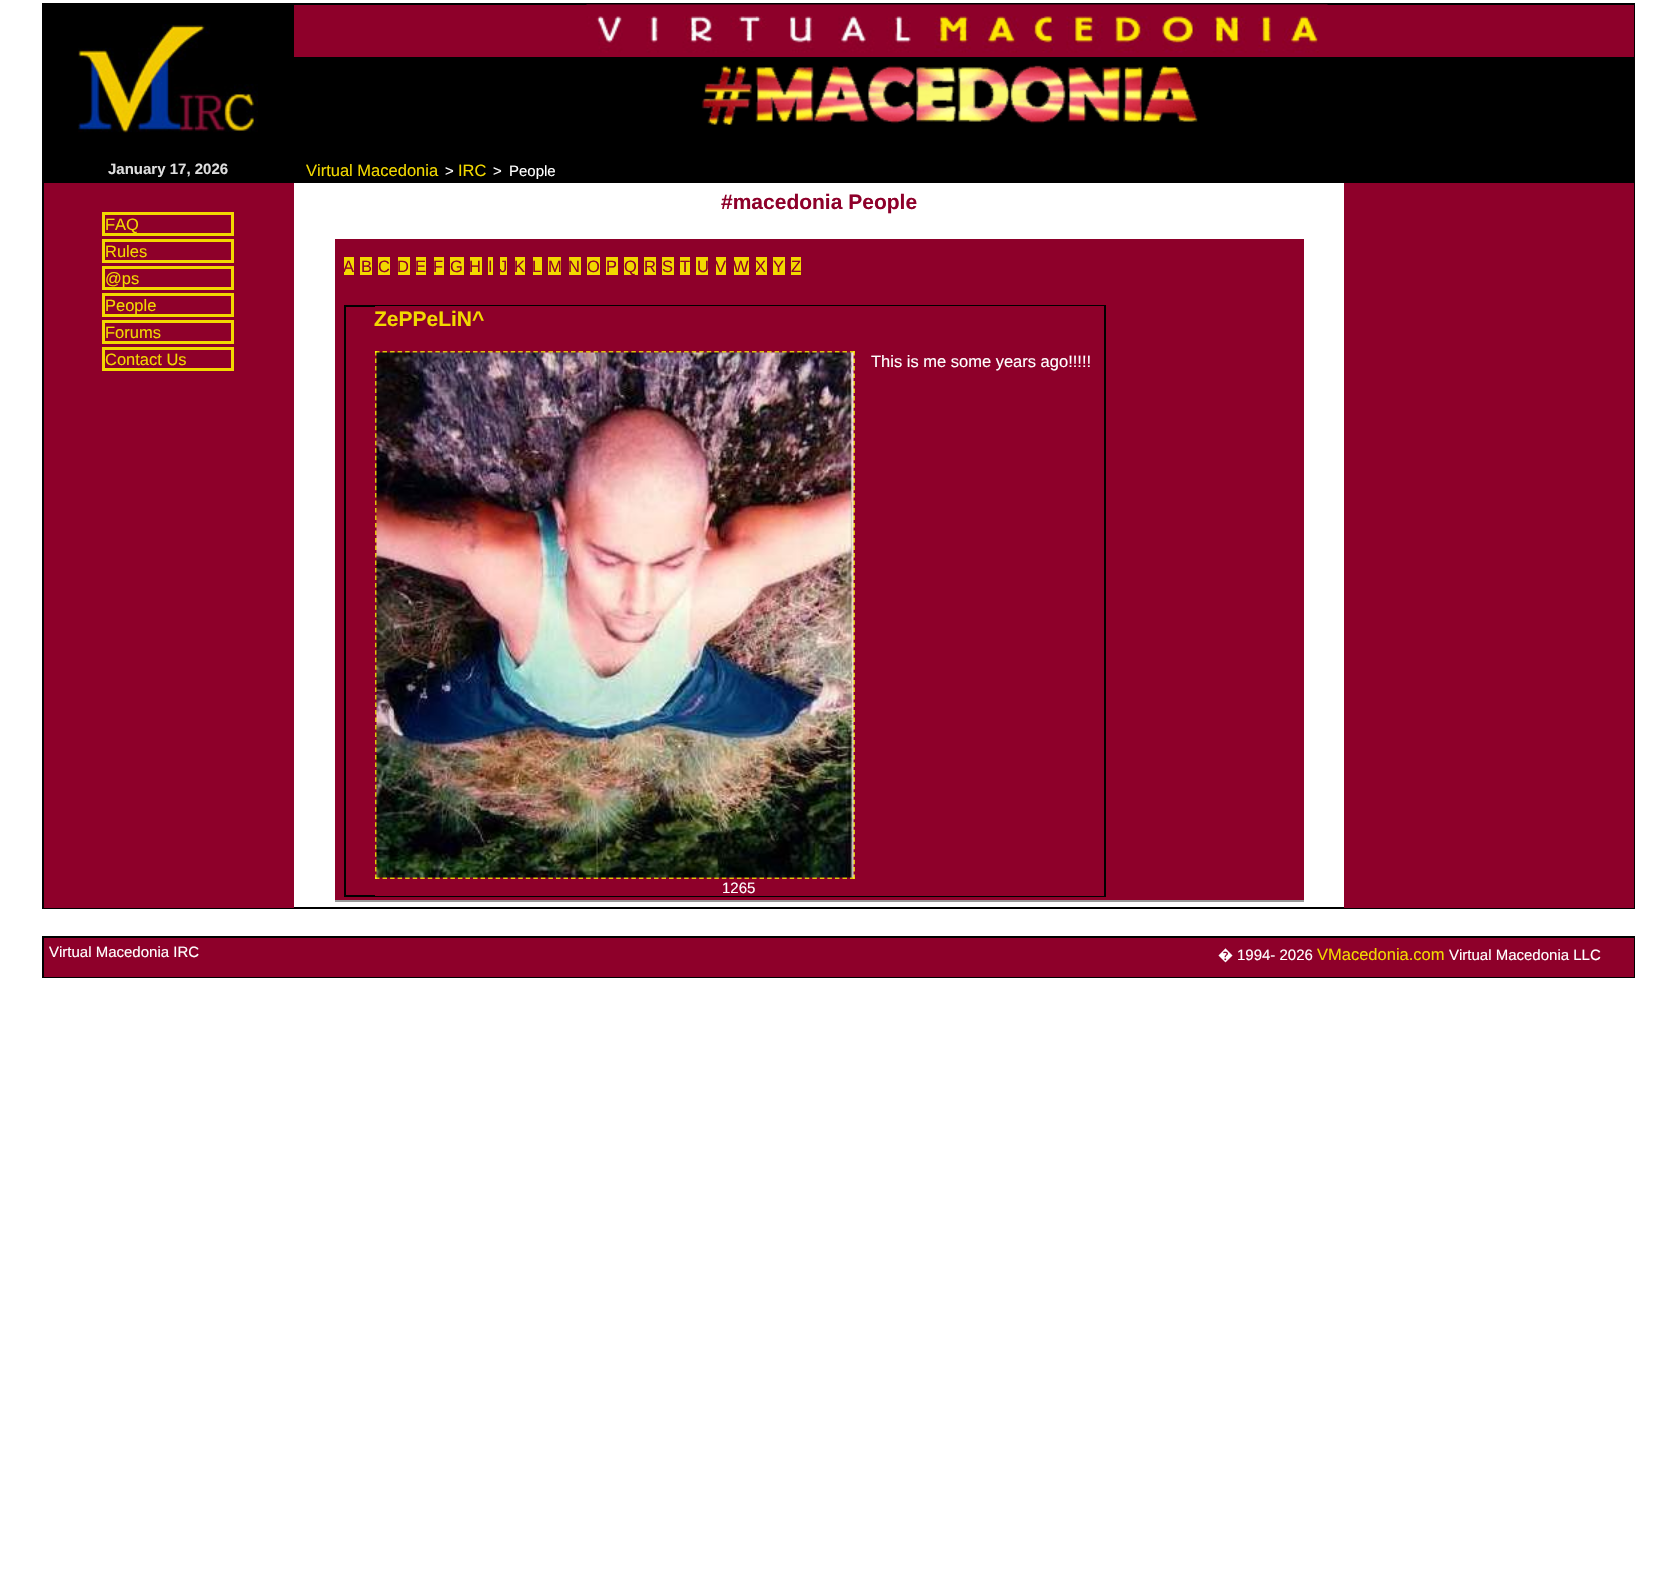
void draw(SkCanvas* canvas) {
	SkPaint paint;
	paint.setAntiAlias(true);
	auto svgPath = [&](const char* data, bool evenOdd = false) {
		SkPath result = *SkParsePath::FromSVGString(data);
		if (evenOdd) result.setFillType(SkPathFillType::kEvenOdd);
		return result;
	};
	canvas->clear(0xffffffff);
	paint.setStroke(true);
	paint.setStrokeWidth(2);
	paint.setColor(0xff000000);
	canvas->drawRect(SkRect::MakeXYWH(43, 4, 1591, 904), paint);
	paint.setStroke(false);
	canvas->drawRect(SkRect::MakeXYWH(44, 5, 250, 178), paint);
	canvas->drawImageRect(SkImages::DeferredFromEncodedData(SkData::MakeFromFileName("img1.png")), SkRect::MakeXYWH(78, 24, 180, 109), SkSamplingOptions());
	canvas->drawRect(SkRect::MakeXYWH(294, 57, 1339, 126), paint);
	paint.setColor(0xff8e002a);
	canvas->drawRect(SkRect::MakeXYWH(294, 5, 1340, 52), paint);
	canvas->drawImageRect(SkImages::DeferredFromEncodedData(SkData::MakeFromFileName("img2.png")), SkRect::MakeXYWH(586, 4, 742, 49), SkSamplingOptions());
	canvas->drawImageRect(SkImages::DeferredFromEncodedData(SkData::MakeFromFileName("img3.png")), SkRect::MakeXYWH(701, 65, 497, 60), SkSamplingOptions());
	SkFont f1(fontMgr->matchFamilyStyle("Liberation Sans", SkFontStyle::Bold()), 15);
	f1.setSubpixel(true);
	paint.setColor(0xffdddddd);
	canvas->drawString("January 17, 2026", 108, 174, f1, paint);
	SkFont f2(fontMgr->matchFamilyStyle("Liberation Sans", SkFontStyle::Normal()), 16.5);
	f2.setSubpixel(true);
	paint.setColor(0xfff2d800);
	canvas->drawString("Virtual Macedonia", 306, 176, f2, paint);
	SkFont f3(fontMgr->matchFamilyStyle("Liberation Sans", SkFontStyle::Normal()), 15);
	f3.setSubpixel(true);
	paint.setColor(0xffffffff);
	canvas->drawString(">", 445, 176, f3, paint);
	paint.setColor(0xfff2d800);
	canvas->drawString("IRC", 458, 176, f2, paint);
	paint.setColor(0xffffffff);
	canvas->drawString(">", 493, 176, f3, paint);
	canvas->drawString("People", 509, 176, f3, paint);
	paint.setColor(0xff8e002a);
	canvas->drawRect(SkRect::MakeXYWH(44, 183, 250, 725), paint);
	paint.setColor(0xfff2d800);
	canvas->drawRect(SkRect::MakeXYWH(102, 212, 132, 24), paint);
	paint.setColor(0xff8e002a);
	canvas->drawRect(SkRect::MakeXYWH(105, 215, 126, 18), paint);
	paint.setColor(0xfff2d800);
	canvas->drawString("FAQ", 105, 230, f2, paint);
	canvas->drawRect(SkRect::MakeXYWH(102, 239, 132, 24), paint);
	paint.setColor(0xff8e002a);
	canvas->drawRect(SkRect::MakeXYWH(105, 242, 126, 18), paint);
	paint.setColor(0xfff2d800);
	canvas->drawString("Rules", 105, 257, f2, paint);
	canvas->drawRect(SkRect::MakeXYWH(102, 266, 132, 24), paint);
	paint.setColor(0xff8e002a);
	canvas->drawRect(SkRect::MakeXYWH(105, 269, 126, 18), paint);
	paint.setColor(0xfff2d800);
	canvas->drawString("@ps", 105, 284, f2, paint);
	canvas->drawRect(SkRect::MakeXYWH(102, 293, 132, 24), paint);
	paint.setColor(0xff8e002a);
	canvas->drawRect(SkRect::MakeXYWH(105, 296, 126, 18), paint);
	paint.setColor(0xfff2d800);
	canvas->drawString("People", 105, 311, f2, paint);
	canvas->drawRect(SkRect::MakeXYWH(102, 320, 132, 24), paint);
	paint.setColor(0xff8e002a);
	canvas->drawRect(SkRect::MakeXYWH(105, 323, 126, 18), paint);
	paint.setColor(0xfff2d800);
	canvas->drawString("Forums", 105, 338, f2, paint);
	canvas->drawRect(SkRect::MakeXYWH(102, 347, 132, 24), paint);
	paint.setColor(0xff8e002a);
	canvas->drawRect(SkRect::MakeXYWH(105, 350, 126, 18), paint);
	paint.setColor(0xfff2d800);
	canvas->drawString("Contact Us", 105, 365, f2, paint);
	SkFont f4(fontMgr->matchFamilyStyle("Liberation Sans", SkFontStyle::Bold()), 21);
	f4.setSubpixel(true);
	paint.setColor(0xff8e002a);
	canvas->drawString("#macedonia People", 721, 209, f4, paint);
	canvas->drawRect(SkRect::MakeXYWH(335, 239, 969, 661), paint);
	paint.setColor(0xff999999);
	canvas->drawRect(SkRect::MakeXYWH(335, 900, 969, 2), paint);
	paint.setColor(0xfff2d800);
	canvas->drawRect(SkRect::MakeXYWH(344, 257, 10, 18), paint);
	paint.setColor(0xff8e002a);
	canvas->drawString("A", 343, 272, f2, paint);
	paint.setColor(0xfff2d800);
	canvas->drawRect(SkRect::MakeXYWH(360, 257, 12, 18), paint);
	paint.setColor(0xff8e002a);
	canvas->drawString("B", 361, 272, f2, paint);
	paint.setColor(0xfff2d800);
	canvas->drawRect(SkRect::MakeXYWH(378, 257, 12, 18), paint);
	paint.setColor(0xff8e002a);
	canvas->drawString("C", 378, 272, f2, paint);
	paint.setColor(0xfff2d800);
	canvas->drawRect(SkRect::MakeXYWH(398, 257, 12, 18), paint);
	paint.setColor(0xff8e002a);
	canvas->drawString("D", 397, 272, f2, paint);
	paint.setColor(0xfff2d800);
	canvas->drawRect(SkRect::MakeXYWH(416, 257, 10, 18), paint);
	paint.setColor(0xff8e002a);
	canvas->drawString("E", 415, 272, f2, paint);
	paint.setColor(0xfff2d800);
	canvas->drawRect(SkRect::MakeXYWH(434, 257, 10, 18), paint);
	paint.setColor(0xff8e002a);
	canvas->drawString("F", 433, 272, f2, paint);
	paint.setColor(0xfff2d800);
	canvas->drawRect(SkRect::MakeXYWH(450, 257, 14, 18), paint);
	paint.setColor(0xff8e002a);
	canvas->drawString("G", 450, 272, f2, paint);
	paint.setColor(0xfff2d800);
	canvas->drawRect(SkRect::MakeXYWH(470, 257, 12, 18), paint);
	paint.setColor(0xff8e002a);
	canvas->drawString("H", 469, 272, f2, paint);
	paint.setColor(0xfff2d800);
	canvas->drawRect(SkRect::MakeXYWH(488, 257, 5, 18), paint);
	paint.setColor(0xff8e002a);
	canvas->drawString("I", 488, 272, f2, paint);
	paint.setColor(0xfff2d800);
	canvas->drawRect(SkRect::MakeXYWH(500, 257, 7, 18), paint);
	paint.setColor(0xff8e002a);
	canvas->drawString("J", 499, 272, f2, paint);
	paint.setColor(0xfff2d800);
	canvas->drawRect(SkRect::MakeXYWH(515, 257, 10, 18), paint);
	paint.setColor(0xff8e002a);
	canvas->drawString("K", 514, 272, f2, paint);
	paint.setColor(0xfff2d800);
	canvas->drawRect(SkRect::MakeXYWH(533, 257, 9, 18), paint);
	paint.setColor(0xff8e002a);
	canvas->drawString("L", 532, 272, f2, paint);
	paint.setColor(0xfff2d800);
	canvas->drawRect(SkRect::MakeXYWH(548, 257, 13, 18), paint);
	paint.setColor(0xff8e002a);
	canvas->drawString("M", 548, 272, f2, paint);
	paint.setColor(0xfff2d800);
	canvas->drawRect(SkRect::MakeXYWH(569, 257, 12, 18), paint);
	paint.setColor(0xff8e002a);
	canvas->drawString("N", 568, 272, f2, paint);
	paint.setColor(0xfff2d800);
	canvas->drawRect(SkRect::MakeXYWH(587, 257, 13, 18), paint);
	paint.setColor(0xff8e002a);
	canvas->drawString("O", 587, 272, f2, paint);
	paint.setColor(0xfff2d800);
	canvas->drawRect(SkRect::MakeXYWH(606, 257, 12, 18), paint);
	paint.setColor(0xff8e002a);
	canvas->drawString("P", 606, 272, f2, paint);
	paint.setColor(0xfff2d800);
	canvas->drawRect(SkRect::MakeXYWH(624, 257, 14, 18), paint);
	paint.setColor(0xff8e002a);
	canvas->drawString("Q", 624, 272, f2, paint);
	paint.setColor(0xfff2d800);
	canvas->drawRect(SkRect::MakeXYWH(644, 257, 12, 18), paint);
	paint.setColor(0xff8e002a);
	canvas->drawString("R", 644, 272, f2, paint);
	paint.setColor(0xfff2d800);
	canvas->drawRect(SkRect::MakeXYWH(662, 257, 12, 18), paint);
	paint.setColor(0xff8e002a);
	canvas->drawString("S", 662, 272, f2, paint);
	paint.setColor(0xfff2d800);
	canvas->drawRect(SkRect::MakeXYWH(680, 257, 10, 18), paint);
	paint.setColor(0xff8e002a);
	canvas->drawString("T", 680, 272, f2, paint);
	paint.setColor(0xfff2d800);
	canvas->drawRect(SkRect::MakeXYWH(696, 257, 12, 18), paint);
	paint.setColor(0xff8e002a);
	canvas->drawString("U", 697, 272, f2, paint);
	paint.setColor(0xfff2d800);
	canvas->drawRect(SkRect::MakeXYWH(716, 257, 10, 18), paint);
	paint.setColor(0xff8e002a);
	canvas->drawString("V", 715, 272, f2, paint);
	paint.setColor(0xfff2d800);
	canvas->drawRect(SkRect::MakeXYWH(734, 257, 15, 18), paint);
	paint.setColor(0xff8e002a);
	canvas->drawString("W", 733, 272, f2, paint);
	paint.setColor(0xfff2d800);
	canvas->drawRect(SkRect::MakeXYWH(756, 257, 11, 18), paint);
	paint.setColor(0xff8e002a);
	canvas->drawString("X", 755, 272, f2, paint);
	paint.setColor(0xfff2d800);
	canvas->drawRect(SkRect::MakeXYWH(773, 257, 12, 18), paint);
	paint.setColor(0xff8e002a);
	canvas->drawString("Y", 773, 272, f2, paint);
	paint.setColor(0xfff2d800);
	canvas->drawRect(SkRect::MakeXYWH(791, 257, 10, 18), paint);
	paint.setColor(0xff8e002a);
	canvas->drawString("Z", 791, 272, f2, paint);
	paint.setStroke(true);
	paint.setColor(0xff000000);
	canvas->drawRect(SkRect::MakeXYWH(345, 306, 760, 590), paint);
	paint.setStroke(false);
	paint.setColor(0xff8e002a);
	canvas->drawRect(SkRect::MakeXYWH(375, 306, 729, 590), paint);
	paint.setColor(0xfff2d800);
	canvas->drawString("ZePPeLiN^", 374, 326, f4, paint);
	paint.setStroke(true);
	paint.setStrokeWidth(1.5);
	paint.setColor(0xffffff00);
	paint.setPathEffect(SkDashPathEffect::Make({{4.5f, 3.04f}}, 0));
	canvas->drawPath(svgPath("M375 352H855"), paint);
	paint.setPathEffect(nullptr);
	paint.setPathEffect(SkDashPathEffect::Make({{4.5f, 2.98f}}, 0));
	canvas->drawPath(svgPath("M854 351V879"), paint);
	paint.setPathEffect(nullptr);
	paint.setPathEffect(SkDashPathEffect::Make({{4.5f, 3.04f}}, 0));
	canvas->drawPath(svgPath("M375 878H855"), paint);
	paint.setPathEffect(nullptr);
	paint.setPathEffect(SkDashPathEffect::Make({{4.5f, 2.98f}}, 0));
	canvas->drawPath(svgPath("M376 351V879"), paint);
	paint.setPathEffect(nullptr);
	canvas->drawImageRect(SkImages::DeferredFromEncodedData(SkData::MakeFromFileName("img4.png")), SkRect::MakeXYWH(376, 352, 478, 526), SkSamplingOptions());
	paint.setStroke(false);
	paint.setColor(0xffffffff);
	canvas->drawString("This is me some years ago!!!!!", 871, 367, f2, paint);
	canvas->drawString("1265", 722, 893, f3, paint);
	paint.setColor(0xff8e002a);
	canvas->drawRect(SkRect::MakeXYWH(1344, 183, 290, 725), paint);
	paint.setStroke(true);
	paint.setStrokeWidth(2);
	paint.setColor(0xff000000);
	canvas->drawRect(SkRect::MakeXYWH(43, 937, 1591, 40), paint);
	paint.setStroke(false);
	paint.setColor(0xff8e002a);
	canvas->drawRect(SkRect::MakeXYWH(44, 938, 1590, 39), paint);
	paint.setColor(0xffffffff);
	canvas->drawString("Virtual Macedonia IRC", 49, 957, f3, paint);
	SkFont f5(fontMgr->matchFamilyStyle("Noto Sans", SkFontStyle::Normal()), 15);
	f5.setSubpixel(true);
	canvas->drawString("�", 1218, 960, f5, paint);
	canvas->drawString("1994- 2026", 1237, 960, f3, paint);
	paint.setColor(0xfff2d800);
	canvas->drawString("VMacedonia.com", 1317, 960, f2, paint);
	paint.setColor(0xffffffff);
	canvas->drawString("Virtual Macedonia LLC", 1449, 960, f3, paint);
}
